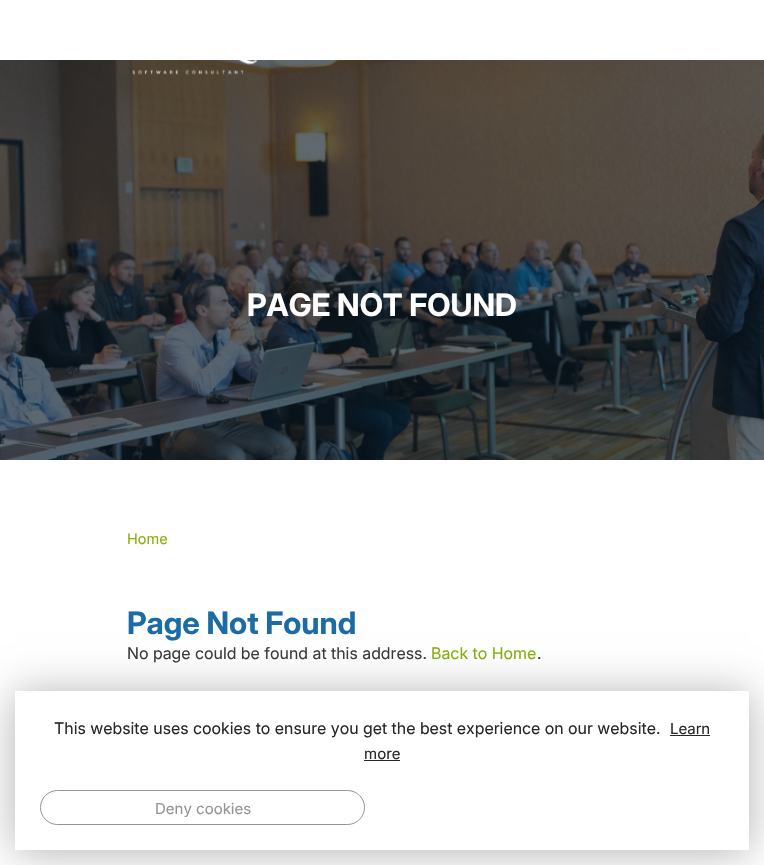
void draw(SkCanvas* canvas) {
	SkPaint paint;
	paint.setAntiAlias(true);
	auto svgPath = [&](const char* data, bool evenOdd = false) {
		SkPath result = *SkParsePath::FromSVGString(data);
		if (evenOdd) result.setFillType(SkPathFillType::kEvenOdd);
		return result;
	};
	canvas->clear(0xffffffff);
	paint.setColor(0xff061017);
	canvas->drawRect(SkRect::MakeXYWH(0, 60, 764, 400), paint);
	canvas->drawImageRect(SkImages::DeferredFromEncodedData(SkData::MakeFromFileName("img2.png")), SkRect::MakeXYWH(0, 60, 764, 400), SkSamplingOptions());
	canvas->drawImageRect(SkImages::DeferredFromEncodedData(SkData::MakeFromFileName("img1.png")), SkRect::MakeXYWH(132, 60, 126, 15), SkSamplingOptions());
	SkFont f1(fontMgr->matchFamilyStyle("Inter", SkFontStyle::Bold()), 31);
	f1.setSubpixel(true);
	paint.setColor(0xffffffff);
	canvas->drawString("PAGE NOT FOUND", 247, 316, f1, paint);
	SkFont f2(fontMgr->matchFamilyStyle("Inter", SkFontStyle::Normal()), 14.5);
	f2.setSubpixel(true);
	paint.setColor(0xff89ae10);
	canvas->drawString("Home", 127, 544, f2, paint);
	paint.setColor(0xff1b6ba5);
	canvas->drawString("Page Not Found", 127, 634, f1, paint);
	SkFont f3(fontMgr->matchFamilyStyle("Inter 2", SkFontStyle::Normal()), 16);
	f3.setSubpixel(true);
	paint.setColor(0xff3c3c3c);
	canvas->drawString("No page could be found at this address.", 127, 659, f3, paint);
	paint.setColor(0xff89ae10);
	canvas->drawString("Back to Home", 431, 659, f3, paint);
	paint.setColor(0xff3c3c3c);
	canvas->drawString(".", 537, 659, f3, paint);
	canvas->save();
	canvas->clipPath(svgPath("M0 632H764V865H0ZM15 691H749V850H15Z", true), true);
	paint.setColor(0x4d000000);
	paint.setMaskFilter(SkMaskFilter::MakeBlur(kNormal_SkBlurStyle, 20));
	canvas->drawRect(SkRect::MakeXYWH(15, 693, 734, 159), paint);
	paint.setMaskFilter(nullptr);
	canvas->restore();
	paint.setColor(0xff272727);
	canvas->drawString("This website uses cookies to ensure you get the best experience on our website.", 54, 734, f3, paint);
	SkFont f4(fontMgr->matchFamilyStyle("Inter", SkFontStyle::Normal()), 15);
	f4.setSubpixel(true);
	canvas->drawString("Learn", 670, 734, f4, paint);
	canvas->drawRect(SkRect::MakeXYWH(670, 735, 40, 1), paint);
	canvas->drawString("more", 364, 759, f4, paint);
	canvas->drawRect(SkRect::MakeXYWH(364, 760, 36, 1), paint);
	paint.setStroke(true);
	paint.setStrokeWidth(1);
	paint.setColor(0xff949494);
	canvas->drawRoundRect(SkRect::MakeXYWH(40.5, 790.5, 324, 34), 17, 17, paint);
	paint.setStroke(false);
	canvas->drawString("Deny cookies", 155, 814, f4, paint);
}
